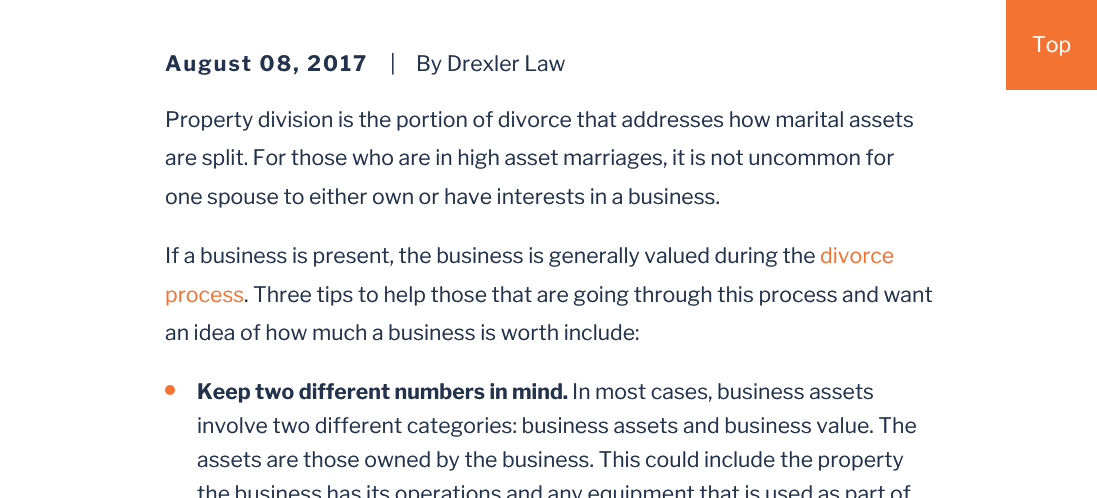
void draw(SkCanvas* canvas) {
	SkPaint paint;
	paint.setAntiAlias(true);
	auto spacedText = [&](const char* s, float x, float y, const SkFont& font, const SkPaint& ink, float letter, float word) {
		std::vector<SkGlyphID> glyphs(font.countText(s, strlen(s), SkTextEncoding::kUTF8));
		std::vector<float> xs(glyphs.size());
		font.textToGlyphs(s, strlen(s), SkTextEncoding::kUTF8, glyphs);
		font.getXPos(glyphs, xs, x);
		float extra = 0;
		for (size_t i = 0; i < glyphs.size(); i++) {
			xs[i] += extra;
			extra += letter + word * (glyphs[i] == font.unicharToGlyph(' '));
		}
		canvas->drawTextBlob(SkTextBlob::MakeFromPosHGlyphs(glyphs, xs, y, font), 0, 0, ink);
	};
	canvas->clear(0xffffffff);
	paint.setColor(0xfff47333);
	canvas->drawRect(SkRect::MakeXYWH(1006, 0, 91, 90), paint);
	SkFont f1(fontMgr->matchFamilyStyle("Libre Franklin", SkFontStyle::Normal()), 21.25);
	f1.setSubpixel(true);
	paint.setColor(0xffffffff);
	canvas->drawString("Top", 1032, 52, f1, paint);
	SkFont f2(fontMgr->matchFamilyStyle("Libre Franklin", SkFontStyle::Bold()), 21.25);
	f2.setSubpixel(true);
	paint.setColor(0xff23334c);
	spacedText("August 08, 2017", 165, 71, f2, paint, 2.1, 0);
	canvas->drawString("|", 390, 71, f1, paint);
	canvas->drawString("By Drexler Law", 416, 71, f1, paint);
	canvas->drawString("Property division is the portion of divorce that addresses how marital", 165, 127, f1, paint);
	canvas->drawString("assets", 849, 127, f1, paint);
	canvas->drawString("are split. For those who are in high asset marriages, it is not uncommon for", 165, 165, f1, paint);
	canvas->drawString("one spouse to either own or have interests in a business.", 165, 204, f1, paint);
	canvas->drawString("If a business is present, the business is generally valued during the", 165, 263, f1, paint);
	paint.setColor(0xfff47333);
	canvas->drawString("divorce", 820, 263, f1, paint);
	canvas->drawString("process", 165, 302, f1, paint);
	paint.setColor(0xff23334c);
	canvas->drawString(". Three tips to help those that are going through this process and want", 244, 302, f1, paint);
	canvas->drawString("an idea of how much a business is worth include:", 165, 340, f1, paint);
	paint.setColor(0xfff47333);
	canvas->drawCircle(170, 390, 5, paint);
	paint.setColor(0xff23334c);
	canvas->drawString("Keep two different numbers in mind.", 197, 399, f2, paint);
	canvas->drawString("In most cases, business assets", 572, 399, f1, paint);
	canvas->drawString("involve two different categories: business assets and business value. The", 197, 433, f1, paint);
	canvas->drawString("assets are those owned by the business. This could include the property", 197, 467, f1, paint);
	canvas->drawString("the business has its operations and any equipment that is used as part of", 197, 501, f1, paint);
}
